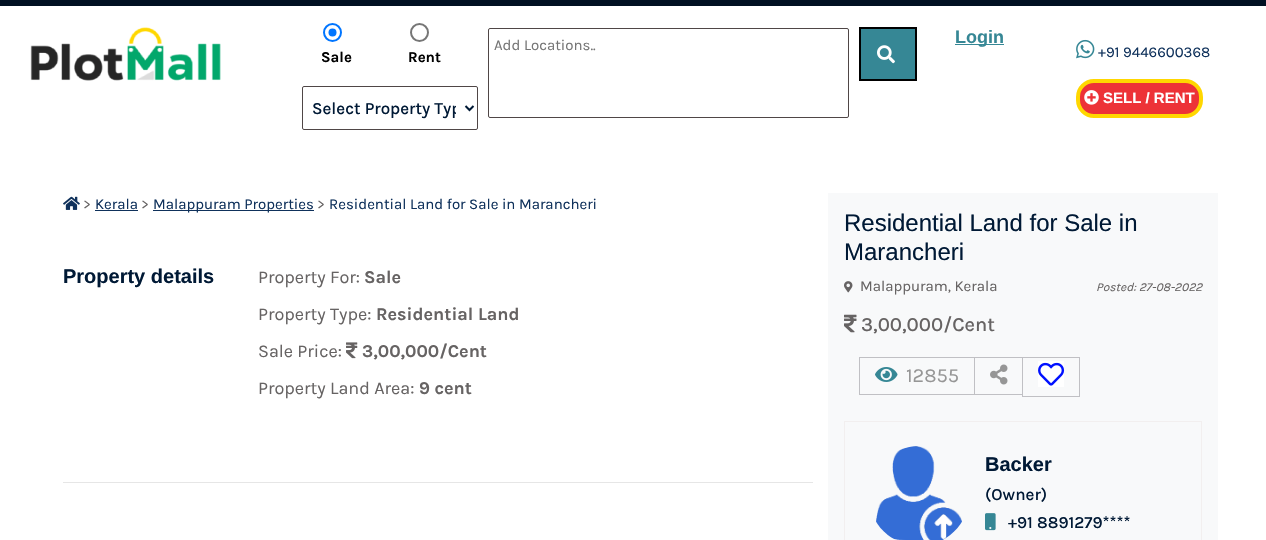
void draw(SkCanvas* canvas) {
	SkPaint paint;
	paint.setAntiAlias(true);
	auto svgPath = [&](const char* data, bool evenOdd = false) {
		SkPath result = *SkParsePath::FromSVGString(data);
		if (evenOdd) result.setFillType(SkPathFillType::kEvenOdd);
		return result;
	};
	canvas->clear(0xffffffff);
	paint.setColor(0xff001022);
	canvas->drawRect(SkRect::MakeXYWH(0, 0, 1266, 6), paint);
	canvas->drawImageRect(SkImages::DeferredFromEncodedData(SkData::MakeFromFileName("img1.png")), SkRect::MakeXYWH(30, 27, 191, 54), SkSamplingOptions());
	paint.setStroke(true);
	paint.setStrokeWidth(1);
	paint.setColor(0xff4f4646);
	canvas->drawRoundRect(SkRect::MakeXYWH(488.5, 28.5, 360, 89), 1.5, 1.5, paint);
	SkFont f1(fontMgr->matchFamilyStyle("Karla", SkFontStyle::Normal()), 15);
	f1.setSubpixel(true);
	paint.setStroke(false);
	paint.setColor(0xff757575);
	canvas->drawString("Add Locations..", 494, 50, f1, paint);
	paint.setColor(0xff368795);
	canvas->drawRect(SkRect::MakeXYWH(860, 28, 56, 52), paint);
	paint.setStroke(true);
	paint.setStrokeWidth(2);
	paint.setColor(0xff000000);
	canvas->drawRect(SkRect::MakeXYWH(860, 28, 56, 52), paint);
	canvas->drawImageRect(SkImages::DeferredFromEncodedData(SkData::MakeFromFileName("img2.png")), SkRect::MakeXYWH(877, 45, 18, 19), SkSamplingOptions());
	paint.setStroke(false);
	paint.setColor(0xff368795);
	canvas->drawRect(SkRect::MakeXYWH(955, 44, 49, 1), paint);
	SkFont f2(fontMgr->matchFamilyStyle("Liberation Sans", SkFontStyle::Bold()), 18);
	f2.setSubpixel(true);
	canvas->drawString("Login", 955, 43, f2, paint);
	paint.setStroke(true);
	paint.setColor(0xff0075ff);
	canvas->drawCircle(332.5, 32.5, 8.5, paint);
	paint.setStroke(false);
	canvas->drawCircle(332.5, 32.5, 4, paint);
	SkFont f3(fontMgr->matchFamilyStyle("Karla", SkFontStyle::Bold()), 15);
	f3.setSubpixel(true);
	paint.setColor(0xff000000);
	canvas->drawString("Sale", 321, 62, f3, paint);
	paint.setStroke(true);
	paint.setColor(0xff767676);
	canvas->drawCircle(419.5, 32.5, 8.5, paint);
	paint.setStroke(false);
	paint.setColor(0xff000000);
	canvas->drawString("Rent", 408, 62, f3, paint);
	paint.setStroke(true);
	paint.setStrokeWidth(1);
	paint.setColor(0xff4f4646);
	canvas->drawRoundRect(SkRect::MakeXYWH(302.5, 86.5, 175, 43), 1.5, 1.5, paint);
	paint.setStrokeWidth(2);
	paint.setColor(0xff001935);
	canvas->drawPath(svgPath("M465.5 106L469.5 110L473.5 106"), paint);
	canvas->save();
	canvas->clipRect(SkRect::MakeXYWH(312, 97, 144, 22));
	SkFont f4(fontMgr->matchFamilyStyle("Karla", SkFontStyle(500, SkFontStyle::kNormal_Width, SkFontStyle::kUpright_Slant)), 17);
	f4.setSubpixel(true);
	paint.setStroke(false);
	canvas->drawString("Select Property Typ", 312, 114, f4, paint);
	canvas->restore();
	canvas->drawImageRect(SkImages::DeferredFromEncodedData(SkData::MakeFromFileName("img3.png")), SkRect::MakeXYWH(1076, 39, 19, 20), SkSamplingOptions());
	paint.setColor(0xff0f315b);
	canvas->drawString("+91 9446600368", 1098, 57, f1, paint);
	paint.setColor(0xffed3237);
	canvas->drawRoundRect(SkRect::MakeXYWH(1078, 81, 123, 35), 16, 16, paint);
	paint.setStroke(true);
	paint.setStrokeWidth(4);
	paint.setColor(0xffffd700);
	canvas->drawRoundRect(SkRect::MakeXYWH(1078, 81, 123, 35), 16, 16, paint);
	canvas->drawImageRect(SkImages::DeferredFromEncodedData(SkData::MakeFromFileName("img4.png")), SkRect::MakeXYWH(1084, 90, 15, 15), SkSamplingOptions());
	SkFont f5(fontMgr->matchFamilyStyle("Liberation Sans", SkFontStyle::Bold()), 15);
	f5.setSubpixel(true);
	paint.setStroke(false);
	paint.setColor(0xffffffff);
	canvas->drawString("SELL / RENT", 1103, 103, f5, paint);
	canvas->drawImageRect(SkImages::DeferredFromEncodedData(SkData::MakeFromFileName("img5.png")), SkRect::MakeXYWH(63, 196, 17, 14), SkSamplingOptions());
	paint.setColor(0xff666363);
	canvas->drawString(">", 83, 209, f1, paint);
	paint.setColor(0xff0f315b);
	canvas->drawString("Kerala", 95, 209, f1, paint);
	canvas->drawRect(SkRect::MakeXYWH(95, 210, 43, 1), paint);
	paint.setColor(0xff666363);
	canvas->drawString(">", 141, 209, f1, paint);
	paint.setColor(0xff0f315b);
	canvas->drawRect(SkRect::MakeXYWH(153, 210, 161, 1), paint);
	canvas->drawString("Malappuram Properties", 153, 209, f1, paint);
	paint.setColor(0xff666363);
	canvas->drawString(">", 317, 209, f1, paint);
	paint.setColor(0xff0f315b);
	canvas->drawString("Residential Land for Sale in Marancheri", 329, 209, f1, paint);
	SkFont f6(fontMgr->matchFamilyStyle("Liberation Sans", SkFontStyle::Bold()), 20);
	f6.setSubpixel(true);
	paint.setColor(0xff001935);
	canvas->drawString("Property details", 63, 283, f6, paint);
	SkFont f7(fontMgr->matchFamilyStyle("Karla", SkFontStyle::Normal()), 18);
	f7.setSubpixel(true);
	paint.setColor(0xff666363);
	canvas->drawString("Property For:", 258, 283, f7, paint);
	SkFont f8(fontMgr->matchFamilyStyle("Karla", SkFontStyle::Bold()), 18);
	f8.setSubpixel(true);
	canvas->drawString("Sale", 364, 283, f8, paint);
	canvas->drawString("Property Type:", 258, 320, f7, paint);
	canvas->drawString("Residential Land", 376, 320, f8, paint);
	canvas->drawString("Sale Price:", 258, 357, f7, paint);
	canvas->drawImageRect(SkImages::DeferredFromEncodedData(SkData::MakeFromFileName("img6.png")), SkRect::MakeXYWH(346, 342, 12, 17), SkSamplingOptions());
	canvas->drawString("3,00,000/Cent", 362, 357, f8, paint);
	canvas->drawString("Property Land Area:", 258, 394, f7, paint);
	canvas->drawString("9 cent", 419, 394, f8, paint);
	paint.setColor(0xffe6e6e6);
	canvas->drawRect(SkRect::MakeXYWH(63, 482, 750, 1), paint);
	paint.setColor(0xfff8f9fa);
	canvas->drawRect(SkRect::MakeXYWH(828, 193, 390, 347), paint);
	SkFont f9(fontMgr->matchFamilyStyle("Liberation Sans", SkFontStyle::Normal()), 24);
	f9.setSubpixel(true);
	paint.setColor(0xff001935);
	canvas->drawString("Residential Land for Sale in", 844, 231, f9, paint);
	canvas->drawString("Marancheri", 844, 260, f9, paint);
	canvas->drawImageRect(SkImages::DeferredFromEncodedData(SkData::MakeFromFileName("img7.png")), SkRect::MakeXYWH(844, 281, 9, 12), SkSamplingOptions());
	paint.setColor(0xff666363);
	canvas->drawString("Malappuram, Kerala", 860, 291, f1, paint);
	SkFont f10(fontMgr->matchFamilyStyle("Karla", SkFontStyle::Italic()), 12);
	f10.setSubpixel(true);
	canvas->drawString("Posted: 27-08-2022", 1096, 291, f10, paint);
	canvas->drawImageRect(SkImages::DeferredFromEncodedData(SkData::MakeFromFileName("img8.png")), SkRect::MakeXYWH(844, 314, 13, 19), SkSamplingOptions());
	SkFont f11(fontMgr->matchFamilyStyle("Karla", SkFontStyle(500, SkFontStyle::kNormal_Width, SkFontStyle::kUpright_Slant)), 20);
	f11.setSubpixel(true);
	canvas->drawString("3,00,000/Cent", 861, 331, f11, paint);
	paint.setStroke(true);
	paint.setStrokeWidth(1);
	paint.setColor(0xffc0c0c4);
	canvas->drawRect(SkRect::MakeXYWH(859.5, 357.5, 115, 37), paint);
	canvas->drawImageRect(SkImages::DeferredFromEncodedData(SkData::MakeFromFileName("img9.png")), SkRect::MakeXYWH(875, 367, 23, 15), SkSamplingOptions());
	SkFont f12(fontMgr->matchFamilyStyle("Karla", SkFontStyle::Normal()), 20);
	f12.setSubpixel(true);
	paint.setStroke(false);
	paint.setColor(0xff969696);
	canvas->drawString("12855", 906, 382, f12, paint);
	paint.setStroke(true);
	paint.setColor(0xffc0c0c4);
	canvas->drawRect(SkRect::MakeXYWH(1022.5, 357.5, 57, 39), paint);
	canvas->drawRect(SkRect::MakeXYWH(974.5, 357.5, 48, 37), paint);
	canvas->drawImageRect(SkImages::DeferredFromEncodedData(SkData::MakeFromFileName("img10.png")), SkRect::MakeXYWH(990, 364, 18, 21), SkSamplingOptions());
	paint.setStroke(false);
	paint.setColor(0xffffffff);
	canvas->drawRect(SkRect::MakeXYWH(1038, 361, 26, 26), paint);
	canvas->drawImageRect(SkImages::DeferredFromEncodedData(SkData::MakeFromFileName("img11.png")), SkRect::MakeXYWH(1038, 362, 27, 24), SkSamplingOptions());
	paint.setColor(0xfff2efef);
	canvas->drawRect(SkRect::MakeXYWH(844, 421, 358, 1), paint);
	canvas->drawRect(SkRect::MakeXYWH(1201, 421, 1, 119), paint);
	canvas->drawRect(SkRect::MakeXYWH(844, 421, 1, 119), paint);
	canvas->drawImageRect(SkImages::DeferredFromEncodedData(SkData::MakeFromFileName("img12.png")), SkRect::MakeXYWH(876, 446, 86, 94), SkSamplingOptions());
	paint.setColor(0xff001935);
	canvas->drawString("Backer", 985, 471, f6, paint);
	canvas->drawString("(Owner)", 985, 500, f4, paint);
	canvas->drawImageRect(SkImages::DeferredFromEncodedData(SkData::MakeFromFileName("img13.png")), SkRect::MakeXYWH(985, 513, 11, 18), SkSamplingOptions());
	canvas->drawString("+91 8891279****", 1008, 528, f4, paint);
}
